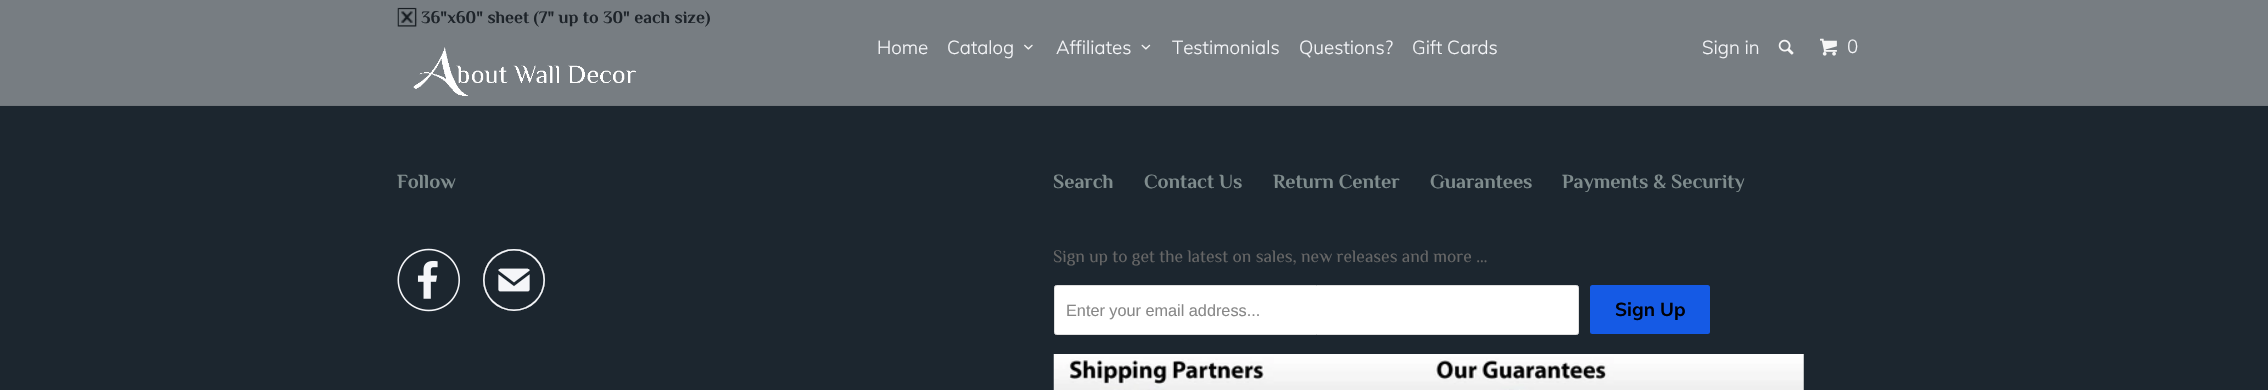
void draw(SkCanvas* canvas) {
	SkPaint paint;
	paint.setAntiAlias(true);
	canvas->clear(0xff777d82);
	canvas->drawImageRect(SkImages::DeferredFromEncodedData(SkData::MakeFromFileName("img1.png")), SkRect::MakeXYWH(397, 7, 21, 20), SkSamplingOptions());
	SkFont f1(fontMgr->matchFamilyStyle("Philosopher", SkFontStyle::Bold()), 17.5);
	f1.setSubpixel(true);
	paint.setColor(0xff1e242a);
	canvas->drawString("36\"x60\" sheet (7\" up to 30\" each size)", 421, 23, f1, paint);
	canvas->drawImageRect(SkImages::DeferredFromEncodedData(SkData::MakeFromFileName("img2.png")), SkRect::MakeXYWH(413, 47, 223, 49), SkSamplingOptions());
	SkFont f2(fontMgr->matchFamilyStyle("Muli", SkFontStyle(300, SkFontStyle::kNormal_Width, SkFontStyle::kUpright_Slant)), 18.75);
	f2.setSubpixel(true);
	paint.setColor(0xfff5f6f9);
	canvas->drawString("Home", 877, 54, f2, paint);
	canvas->drawString("Catalog", 947, 54, f2, paint);
	canvas->drawImageRect(SkImages::DeferredFromEncodedData(SkData::MakeFromFileName("img3.png")), SkRect::MakeXYWH(1024, 44, 9, 6), SkSamplingOptions());
	canvas->drawString("Affiliates", 1056, 54, f2, paint);
	canvas->drawImageRect(SkImages::DeferredFromEncodedData(SkData::MakeFromFileName("img4.png")), SkRect::MakeXYWH(1141, 44, 10, 6), SkSamplingOptions());
	canvas->drawString("Testimonials", 1172, 54, f2, paint);
	canvas->drawString("Questions?", 1299, 54, f2, paint);
	canvas->drawString("Gift Cards", 1412, 54, f2, paint);
	canvas->drawString("Sign in", 1702, 54, f2, paint);
	canvas->drawImageRect(SkImages::DeferredFromEncodedData(SkData::MakeFromFileName("img5.png")), SkRect::MakeXYWH(1778, 39, 16, 16), SkSamplingOptions());
	canvas->drawImageRect(SkImages::DeferredFromEncodedData(SkData::MakeFromFileName("img6.png")), SkRect::MakeXYWH(1820, 38, 17, 18), SkSamplingOptions());
	canvas->drawString("0", 1847, 53, f2, paint);
	paint.setColor(0xff1c262f);
	canvas->drawRect(SkRect::MakeXYWH(0, 106, 2268, 284), paint);
	paint.setColor(0xff72787d);
	canvas->drawRect(SkRect::MakeXYWH(0, 105, 2268, 1), paint);
	SkFont f3(fontMgr->matchFamilyStyle("Philosopher", SkFontStyle::Bold()), 20);
	f3.setSubpixel(true);
	paint.setColor(0xff7f8c8d);
	canvas->drawString("Follow", 397, 188, f3, paint);
	canvas->drawImageRect(SkImages::DeferredFromEncodedData(SkData::MakeFromFileName("img7.png")), SkRect::MakeXYWH(397, 248, 63, 64), SkSamplingOptions());
	SkFont f4(fontMgr->matchFamilyStyle("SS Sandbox", SkFontStyle::Normal()), 62);
	f4.setSubpixel(true);
	paint.setColor(0xfff5f6f9);
	canvas->drawString("✉", 483, 311, f4, paint);
	paint.setColor(0xff7f8c8d);
	canvas->drawString("Search", 1053, 188, f3, paint);
	canvas->drawString("Contact Us", 1144, 188, f3, paint);
	canvas->drawString("Return Center", 1273, 188, f3, paint);
	canvas->drawString("Guarantees", 1430, 188, f3, paint);
	canvas->drawString("Payments & Security", 1562, 188, f3, paint);
	SkFont f5(fontMgr->matchFamilyStyle("Philosopher", SkFontStyle::Normal()), 17.5);
	f5.setSubpixel(true);
	paint.setColor(0xff666666);
	canvas->drawString("Sign up to get the latest on sales, new releases and more …", 1053, 262, f5, paint);
	paint.setColor(0xffffffff);
	canvas->drawRoundRect(SkRect::MakeXYWH(1054.5, 285.5, 524, 49), 2, 2, paint);
	paint.setStroke(true);
	paint.setStrokeWidth(1);
	paint.setColor(0xffdfdfdf);
	canvas->drawRoundRect(SkRect::MakeXYWH(1054.5, 285.5, 524, 49), 2, 2, paint);
	SkFont f6(fontMgr->matchFamilyStyle("Liberation Sans", SkFontStyle::Normal()), 16.25);
	f6.setSubpixel(true);
	paint.setStroke(false);
	paint.setColor(0xff888888);
	canvas->drawString("Enter your email address...", 1066, 316, f6, paint);
	paint.setColor(0xff155ae5);
	canvas->drawRoundRect(SkRect::MakeXYWH(1590, 285, 120, 49), 2.5, 2.5, paint);
	SkFont f7(fontMgr->matchFamilyStyle("Muli", SkFontStyle::Bold()), 18.75);
	f7.setSubpixel(true);
	paint.setColor(0xff000108);
	canvas->drawString("Sign Up", 1615, 316, f7, paint);
	canvas->drawImageRect(SkImages::DeferredFromEncodedData(SkData::MakeFromFileName("img8.png")), SkRect::MakeXYWH(1053, 354, 751, 36), SkSamplingOptions());
}
